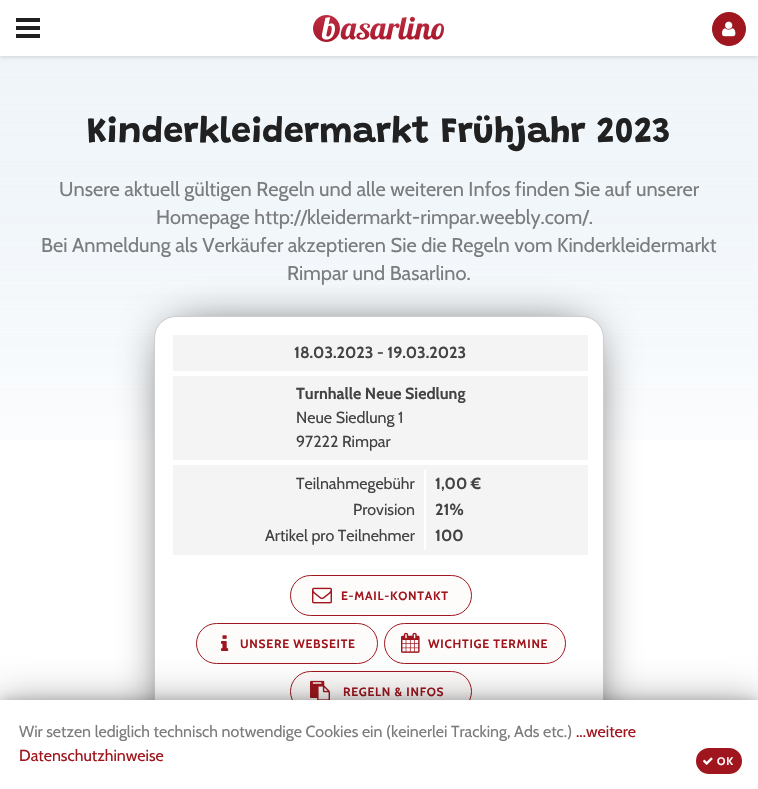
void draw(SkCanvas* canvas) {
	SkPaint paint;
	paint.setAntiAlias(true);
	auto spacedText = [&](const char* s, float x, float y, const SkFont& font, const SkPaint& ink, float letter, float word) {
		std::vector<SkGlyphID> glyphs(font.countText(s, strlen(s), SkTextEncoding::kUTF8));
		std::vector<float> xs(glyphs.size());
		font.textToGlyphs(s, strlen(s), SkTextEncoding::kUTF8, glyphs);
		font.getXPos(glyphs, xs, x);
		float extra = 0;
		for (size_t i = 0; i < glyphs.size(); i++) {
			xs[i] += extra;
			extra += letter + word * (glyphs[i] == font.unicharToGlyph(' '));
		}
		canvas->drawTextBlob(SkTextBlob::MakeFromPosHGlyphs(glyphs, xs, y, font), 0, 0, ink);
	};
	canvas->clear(0xffffffff);
	canvas->drawImageRect(SkImages::DeferredFromEncodedData(SkData::MakeFromFileName("img1.png")), SkRect::MakeXYWH(0, 56, 758, 384), SkSamplingOptions());
	paint.setColor(0x26000000);
	paint.setMaskFilter(SkMaskFilter::MakeBlur(kNormal_SkBlurStyle, 2));
	canvas->drawRect(SkRect::MakeXYWH(0, 1, 758, 56), paint);
	paint.setMaskFilter(nullptr);
	paint.setColor(0xffffffff);
	canvas->drawRect(SkRect::MakeXYWH(0, 0, 758, 56), paint);
	paint.setColor(0xff212121);
	canvas->drawRect(SkRect::MakeXYWH(16, 26, 24, 4), paint);
	canvas->drawRect(SkRect::MakeXYWH(16, 18, 24, 4), paint);
	canvas->drawRect(SkRect::MakeXYWH(16, 34, 24, 4), paint);
	canvas->drawImageRect(SkImages::DeferredFromEncodedData(SkData::MakeFromFileName("img2.png")), SkRect::MakeXYWH(313, 15, 131, 27), SkSamplingOptions());
	paint.setColor(0xffa0161e);
	canvas->drawCircle(729, 29, 16.5, paint);
	paint.setStroke(true);
	paint.setStrokeWidth(1);
	canvas->drawCircle(729, 29, 16.5, paint);
	canvas->drawImageRect(SkImages::DeferredFromEncodedData(SkData::MakeFromFileName("img3.png")), SkRect::MakeXYWH(722, 21, 14, 16), SkSamplingOptions());
	SkFont f1(fontMgr->matchFamilyStyle("Grandstander", SkFontStyle::Bold()), 36);
	f1.setSubpixel(true);
	paint.setStroke(false);
	paint.setColor(0xff212121);
	canvas->drawString("Kinderkleidermarkt Frühjahr 2023", 87, 142, f1, paint);
	SkFont f2(fontMgr->matchFamilyStyle("Cabin", SkFontStyle::Normal()), 20);
	f2.setSubpixel(true);
	paint.setColor(0xff7b7c7d);
	canvas->drawString("Unsere aktuell gültigen Regeln und alle weiteren Infos finden Sie auf unserer", 59, 196, f2, paint);
	canvas->drawString("Homepage http://kleidermarkt-rimpar.weebly.com/.", 156, 224, f2, paint);
	canvas->drawString("Bei Anmeldung als Verkäufer akzeptieren Sie die Regeln vom Kinderkleidermarkt", 41, 252, f2, paint);
	canvas->drawString("Rimpar und Basarlino.", 287, 280, f2, paint);
	paint.setColor(0xff000000);
	paint.setMaskFilter(SkMaskFilter::MakeBlur(kNormal_SkBlurStyle, 25));
	canvas->drawRoundRect(SkRect::MakeXYWH(174, 336, 410, 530), 2, 2, paint);
	paint.setMaskFilter(nullptr);
	paint.setColor(0xffffffff);
	canvas->drawRoundRect(SkRect::MakeXYWH(154.5, 316.5, 449, 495), 21.5, 21.5, paint);
	paint.setStroke(true);
	paint.setColor(0xffcececf);
	canvas->drawRoundRect(SkRect::MakeXYWH(154.5, 316.5, 449, 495), 21.5, 21.5, paint);
	paint.setStroke(false);
	paint.setColor(0xfff5f4f4);
	canvas->drawRect(SkRect::MakeXYWH(173, 335, 415, 36), paint);
	SkFont f3(fontMgr->matchFamilyStyle("Cabin", SkFontStyle::Bold()), 16);
	f3.setSubpixel(true);
	paint.setColor(0xff434345);
	canvas->drawString("18.03.2023 - 19.03.2023", 294, 358, f3, paint);
	paint.setColor(0xfff5f4f4);
	canvas->drawRect(SkRect::MakeXYWH(173, 376, 415, 84), paint);
	paint.setColor(0xff434345);
	canvas->drawString("Turnhalle Neue Siedlung", 296, 399, f3, paint);
	SkFont f4(fontMgr->matchFamilyStyle("Cabin", SkFontStyle::Normal()), 16);
	f4.setSubpixel(true);
	canvas->drawString("Neue Siedlung 1", 296, 423, f4, paint);
	canvas->drawString("97222 Rimpar", 296, 447, f4, paint);
	paint.setColor(0xfff5f4f4);
	canvas->drawRect(SkRect::MakeXYWH(173, 465, 415, 90), paint);
	paint.setColor(0xff434345);
	canvas->drawString("Teilnahmegebühr", 296, 489, f4, paint);
	canvas->drawString("1,00 €", 435, 489, f3, paint);
	canvas->drawString("Provision", 353, 515, f4, paint);
	canvas->drawString("21%", 435, 515, f3, paint);
	canvas->drawString("Artikel pro Teilnehmer", 265, 541, f4, paint);
	paint.setColor(0xffffffff);
	canvas->drawRect(SkRect::MakeXYWH(424, 470, 2, 80), paint);
	paint.setColor(0xff434345);
	canvas->drawString("100", 435, 541, f3, paint);
	paint.setColor(0xfffdfcfb);
	canvas->drawRoundRect(SkRect::MakeXYWH(290.5, 575.5, 181, 40), 20, 20, paint);
	paint.setStroke(true);
	paint.setColor(0xffa0161e);
	canvas->drawRoundRect(SkRect::MakeXYWH(290.5, 575.5, 181, 40), 20, 20, paint);
	canvas->drawImageRect(SkImages::DeferredFromEncodedData(SkData::MakeFromFileName("img4.png")), SkRect::MakeXYWH(312, 587, 20, 17), SkSamplingOptions());
	SkFont f5(fontMgr->matchFamilyStyle("Cabin", SkFontStyle::Bold()), 12);
	f5.setSubpixel(true);
	paint.setStroke(false);
	spacedText("E-MAIL-KONTAKT", 341, 600, f5, paint, 0.75, 0);
	paint.setColor(0xfffdfcfb);
	canvas->drawRoundRect(SkRect::MakeXYWH(196.5, 623.5, 181, 40), 20, 20, paint);
	paint.setStroke(true);
	paint.setColor(0xffa0161e);
	canvas->drawRoundRect(SkRect::MakeXYWH(196.5, 623.5, 181, 40), 20, 20, paint);
	canvas->drawImageRect(SkImages::DeferredFromEncodedData(SkData::MakeFromFileName("img5.png")), SkRect::MakeXYWH(221, 635, 8, 16), SkSamplingOptions());
	paint.setStroke(false);
	spacedText("UNSERE WEBSEITE", 240, 648, f5, paint, 0.75, 0);
	paint.setColor(0xfffdfcfb);
	canvas->drawRoundRect(SkRect::MakeXYWH(384.5, 623.5, 181, 40), 20, 20, paint);
	paint.setStroke(true);
	paint.setColor(0xffa0161e);
	canvas->drawRoundRect(SkRect::MakeXYWH(384.5, 623.5, 181, 40), 20, 20, paint);
	canvas->drawImageRect(SkImages::DeferredFromEncodedData(SkData::MakeFromFileName("img6.png")), SkRect::MakeXYWH(401, 632, 19, 21), SkSamplingOptions());
	paint.setStroke(false);
	spacedText("WICHTIGE TERMINE", 428, 648, f5, paint, 0.75, 0);
	paint.setColor(0xfffdfcfb);
	canvas->drawRoundRect(SkRect::MakeXYWH(290.5, 671.5, 181, 40), 20, 20, paint);
	paint.setStroke(true);
	paint.setColor(0xffa0161e);
	canvas->drawRoundRect(SkRect::MakeXYWH(290.5, 671.5, 181, 40), 20, 20, paint);
	canvas->drawImageRect(SkImages::DeferredFromEncodedData(SkData::MakeFromFileName("img7.png")), SkRect::MakeXYWH(310, 680, 20, 20), SkSamplingOptions());
	paint.setStroke(false);
	spacedText("REGELN & INFOS", 343, 696, f5, paint, 0.75, 0);
	paint.setColor(0x38000000);
	paint.setMaskFilter(SkMaskFilter::MakeBlur(kNormal_SkBlurStyle, 6));
	canvas->drawRect(SkRect::MakeXYWH(0, 700, 758, 89), paint);
	paint.setMaskFilter(nullptr);
	paint.setColor(0x4d000000);
	paint.setMaskFilter(SkMaskFilter::MakeBlur(kNormal_SkBlurStyle, 19));
	canvas->drawRect(SkRect::MakeXYWH(0, 700, 758, 89), paint);
	paint.setMaskFilter(nullptr);
	paint.setColor(0xffffffff);
	canvas->drawRect(SkRect::MakeXYWH(0, 700, 758, 89), paint);
	paint.setColor(0xff7b7c7d);
	canvas->drawString("Wir setzen lediglich technisch notwendige Cookies ein (keinerlei Tracking, Ads etc.)", 19, 737, f4, paint);
	paint.setColor(0xffa0161e);
	canvas->drawString("...weitere", 576, 737, f4, paint);
	canvas->drawString("Datenschutzhinweise", 19, 761, f4, paint);
	canvas->drawRoundRect(SkRect::MakeXYWH(697, 749, 44, 24), 12, 12, paint);
	paint.setStroke(true);
	paint.setStrokeWidth(2);
	canvas->drawRoundRect(SkRect::MakeXYWH(697, 749, 44, 24), 12, 12, paint);
	canvas->drawImageRect(SkImages::DeferredFromEncodedData(SkData::MakeFromFileName("img8.png")), SkRect::MakeXYWH(703, 757, 10, 8), SkSamplingOptions());
	SkFont f6(fontMgr->matchFamilyStyle("Cabin", SkFontStyle::Bold()), 11);
	f6.setSubpixel(true);
	paint.setStroke(false);
	paint.setColor(0xffffffff);
	spacedText("OK", 717, 765, f6, paint, 1, 0);
}
